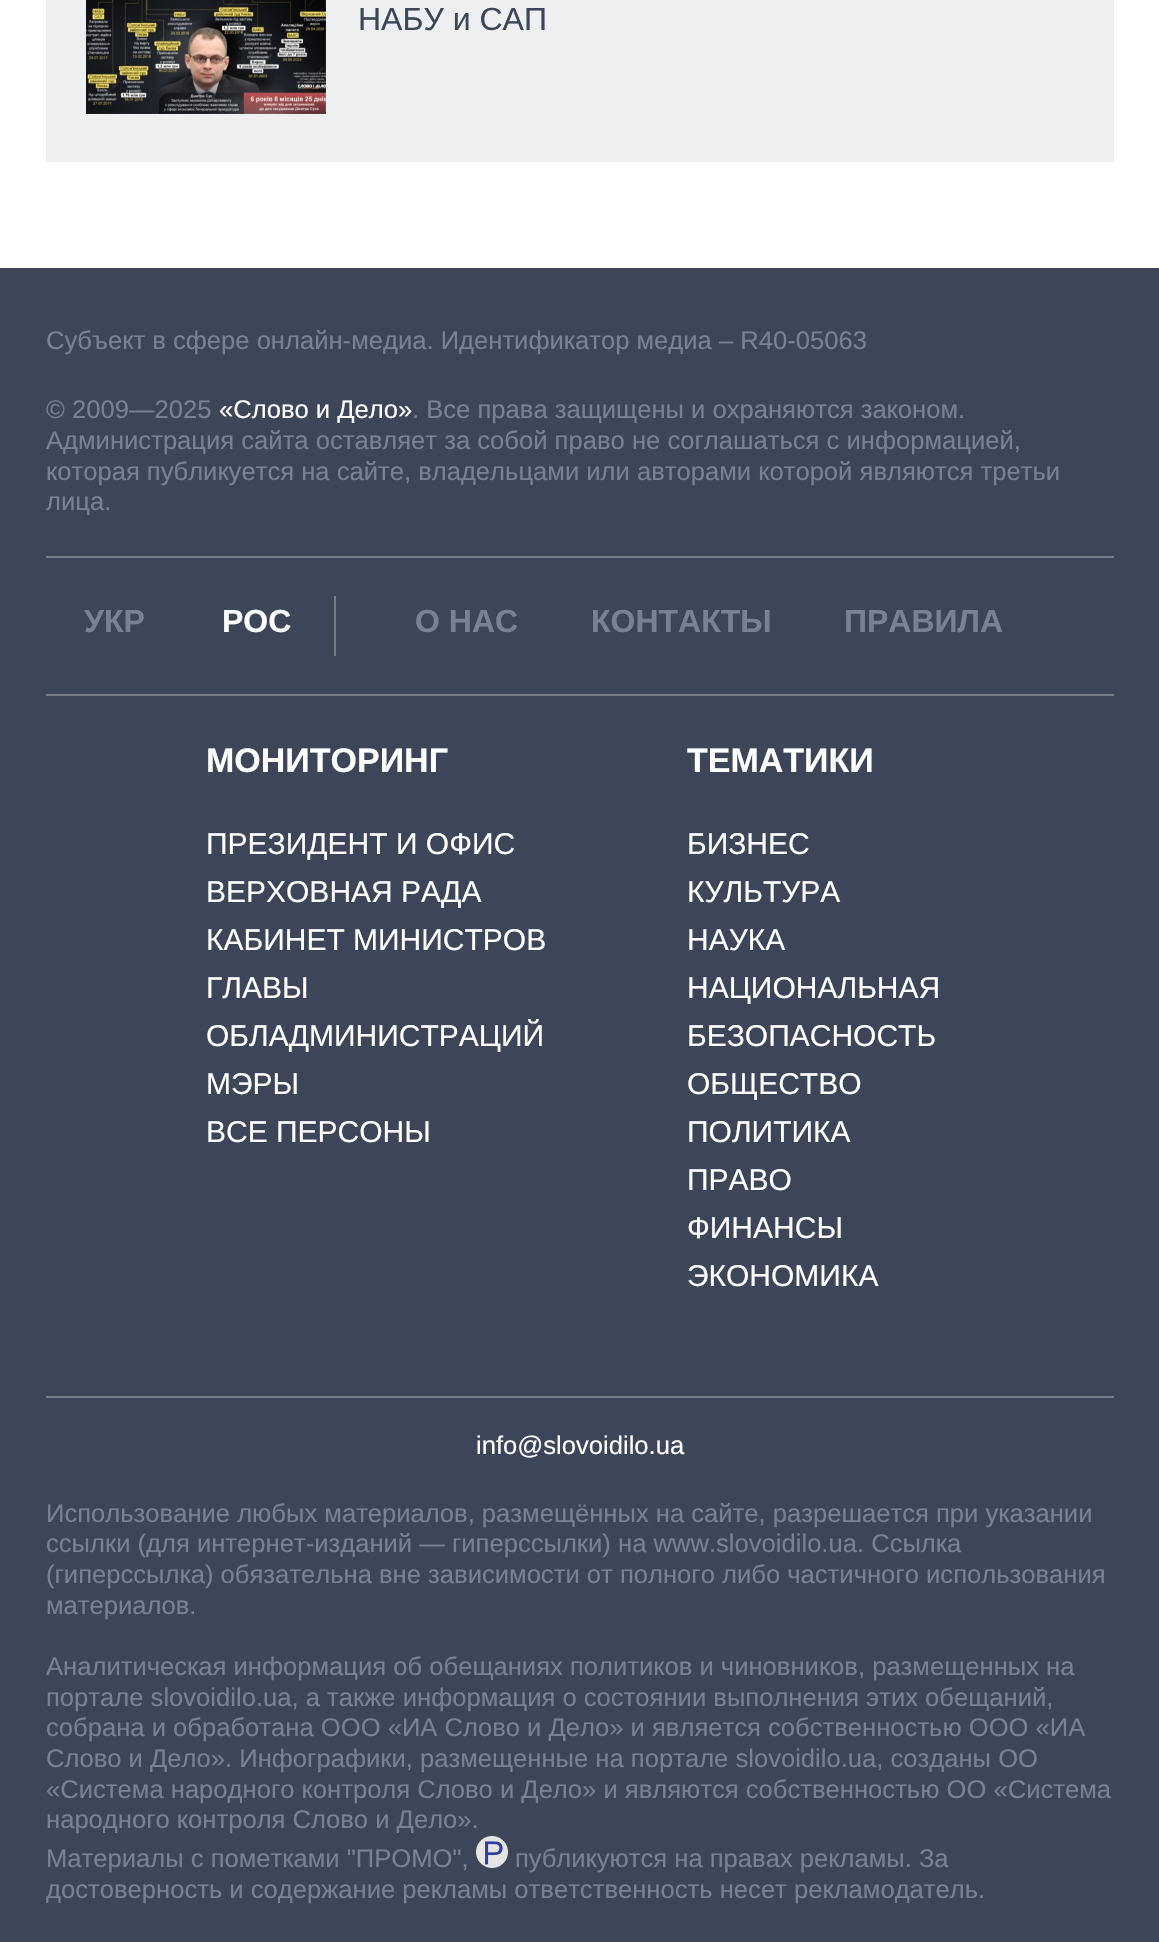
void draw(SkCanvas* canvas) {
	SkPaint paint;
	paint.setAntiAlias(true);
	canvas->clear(0xffffffff);
	paint.setColor(0xffedeff1);
	canvas->drawRect(SkRect::MakeXYWH(46, 0, 1068, 162), paint);
	canvas->drawImageRect(SkImages::DeferredFromEncodedData(SkData::MakeFromFileName("img1.png")), SkRect::MakeXYWH(86, 0, 240, 114), SkSamplingOptions());
	SkFont f1(fontMgr->matchFamilyStyle("Liberation Sans", SkFontStyle::Normal()), 32);
	f1.setSubpixel(true);
	paint.setColor(0xff3c4658);
	canvas->drawString("НАБУ и САП", 358, 30, f1, paint);
	canvas->drawRect(SkRect::MakeXYWH(0, 268, 1159, 1674), paint);
	SkFont f2(fontMgr->matchFamilyStyle("Liberation Sans", SkFontStyle::Normal()), 25.6);
	f2.setSubpixel(true);
	paint.setColor(0xff798292);
	canvas->drawString("Субъект в сфере онлайн-медиа. Идентификатор медиа – R40-05063", 46, 349, f2, paint);
	canvas->drawString("© 2009—2025", 46, 418, f2, paint);
	paint.setColor(0xffffffff);
	canvas->drawString("«Слово и Дело»", 219, 418, f2, paint);
	paint.setColor(0xff798292);
	canvas->drawString(". Все права защищены и охраняются законом.", 412, 418, f2, paint);
	canvas->drawString("Администрация сайта оставляет за собой право не соглашаться с информацией,", 46, 449, f2, paint);
	canvas->drawString("которая публикуется на сайте, владельцами или авторами которой являются третьи", 46, 480, f2, paint);
	canvas->drawString("лица.", 46, 510, f2, paint);
	paint.setColor(0xff777e8a);
	canvas->drawRect(SkRect::MakeXYWH(46, 556, 1068, 2), paint);
	canvas->drawRect(SkRect::MakeXYWH(46, 694, 1068, 2), paint);
	SkFont f3(fontMgr->matchFamilyStyle("Liberation Sans", SkFontStyle::Bold()), 32);
	f3.setSubpixel(true);
	paint.setColor(0xff798292);
	canvas->drawString("УКР", 84, 632, f3, paint);
	paint.setColor(0xffffffff);
	canvas->drawString("РОС", 222, 632, f3, paint);
	paint.setColor(0xff777e8a);
	canvas->drawRect(SkRect::MakeXYWH(334, 596, 2, 60), paint);
	paint.setColor(0xff798292);
	canvas->drawString("О НАС", 415, 632, f3, paint);
	canvas->drawString("КОНТАКТЫ", 591, 632, f3, paint);
	canvas->drawString("ПРАВИЛА", 844, 632, f3, paint);
	SkFont f4(fontMgr->matchFamilyStyle("Liberation Sans", SkFontStyle::Bold()), 34);
	f4.setSubpixel(true);
	paint.setColor(0xffffffff);
	canvas->drawString("МОНИТОРИНГ", 206, 772, f4, paint);
	SkFont f5(fontMgr->matchFamilyStyle("Liberation Sans", SkFontStyle::Normal()), 30);
	f5.setSubpixel(true);
	canvas->drawString("ПРЕЗИДЕНТ И ОФИС", 206, 854, f5, paint);
	canvas->drawString("ВЕРХОВНАЯ РАДА", 206, 902, f5, paint);
	canvas->drawString("КАБИНЕТ МИНИСТРОВ", 206, 950, f5, paint);
	canvas->drawString("ГЛАВЫ", 206, 998, f5, paint);
	canvas->drawString("ОБЛАДМИНИСТРАЦИЙ", 206, 1046, f5, paint);
	canvas->drawString("МЭРЫ", 206, 1094, f5, paint);
	canvas->drawString("ВСЕ ПЕРСОНЫ", 206, 1142, f5, paint);
	canvas->drawString("ТЕМАТИКИ", 687, 772, f4, paint);
	canvas->drawString("БИЗНЕС", 687, 854, f5, paint);
	canvas->drawString("КУЛЬТУРА", 687, 902, f5, paint);
	canvas->drawString("НАУКА", 687, 950, f5, paint);
	canvas->drawString("НАЦИОНАЛЬНАЯ", 687, 998, f5, paint);
	canvas->drawString("БЕЗОПАСНОСТЬ", 687, 1046, f5, paint);
	canvas->drawString("ОБЩЕСТВО", 687, 1094, f5, paint);
	canvas->drawString("ПОЛИТИКА", 687, 1142, f5, paint);
	canvas->drawString("ПРАВО", 687, 1190, f5, paint);
	canvas->drawString("ФИНАНСЫ", 687, 1238, f5, paint);
	canvas->drawString("ЭКОНОМИКА", 687, 1286, f5, paint);
	paint.setColor(0xff777e8a);
	canvas->drawRect(SkRect::MakeXYWH(46, 1396, 1068, 2), paint);
	paint.setColor(0xffffffff);
	canvas->drawString("info@slovoidilo.ua", 476, 1454, f2, paint);
	paint.setColor(0xff798292);
	canvas->drawString("Использование любых материалов, размещённых на сайте, разрешается при указании", 46, 1522, f2, paint);
	canvas->drawString("ссылки (для интернет-изданий — гиперссылки) на www.slovoidilo.ua. Ссылка", 46, 1552, f2, paint);
	canvas->drawString("(гиперссылка) обязательна вне зависимости от полного либо частичного использования", 46, 1583, f2, paint);
	canvas->drawString("материалов.", 46, 1614, f2, paint);
	canvas->drawString("Аналитическая информация об обещаниях политиков и чиновников, размещенных на", 46, 1675, f2, paint);
	canvas->drawString("портале slovoidilo.ua, а также информация о состоянии выполнения этих обещаний,", 46, 1706, f2, paint);
	canvas->drawString("собрана и обработана ООО «ИА Слово и Дело» и является собственностью ООО «ИА", 46, 1736, f2, paint);
	canvas->drawString("Слово и Дело». Инфографики, размещенные на портале slovoidilo.ua, созданы ОО", 46, 1767, f2, paint);
	canvas->drawString("«Система народного контроля Слово и Дело» и являются собственностью ОО «Система", 46, 1798, f2, paint);
	canvas->drawString("народного контроля Слово и Дело».", 46, 1828, f2, paint);
	canvas->drawString("Материалы с пометками \"ПРОМО\",", 46, 1867, f2, paint);
	canvas->drawImageRect(SkImages::DeferredFromEncodedData(SkData::MakeFromFileName("img2.png")), SkRect::MakeXYWH(476, 1836, 32, 32), SkSamplingOptions());
	canvas->drawString("публикуются на правах рекламы. За", 515, 1867, f2, paint);
	canvas->drawString("достоверность и содержание рекламы ответственность несет рекламодатель.", 46, 1898, f2, paint);
}
